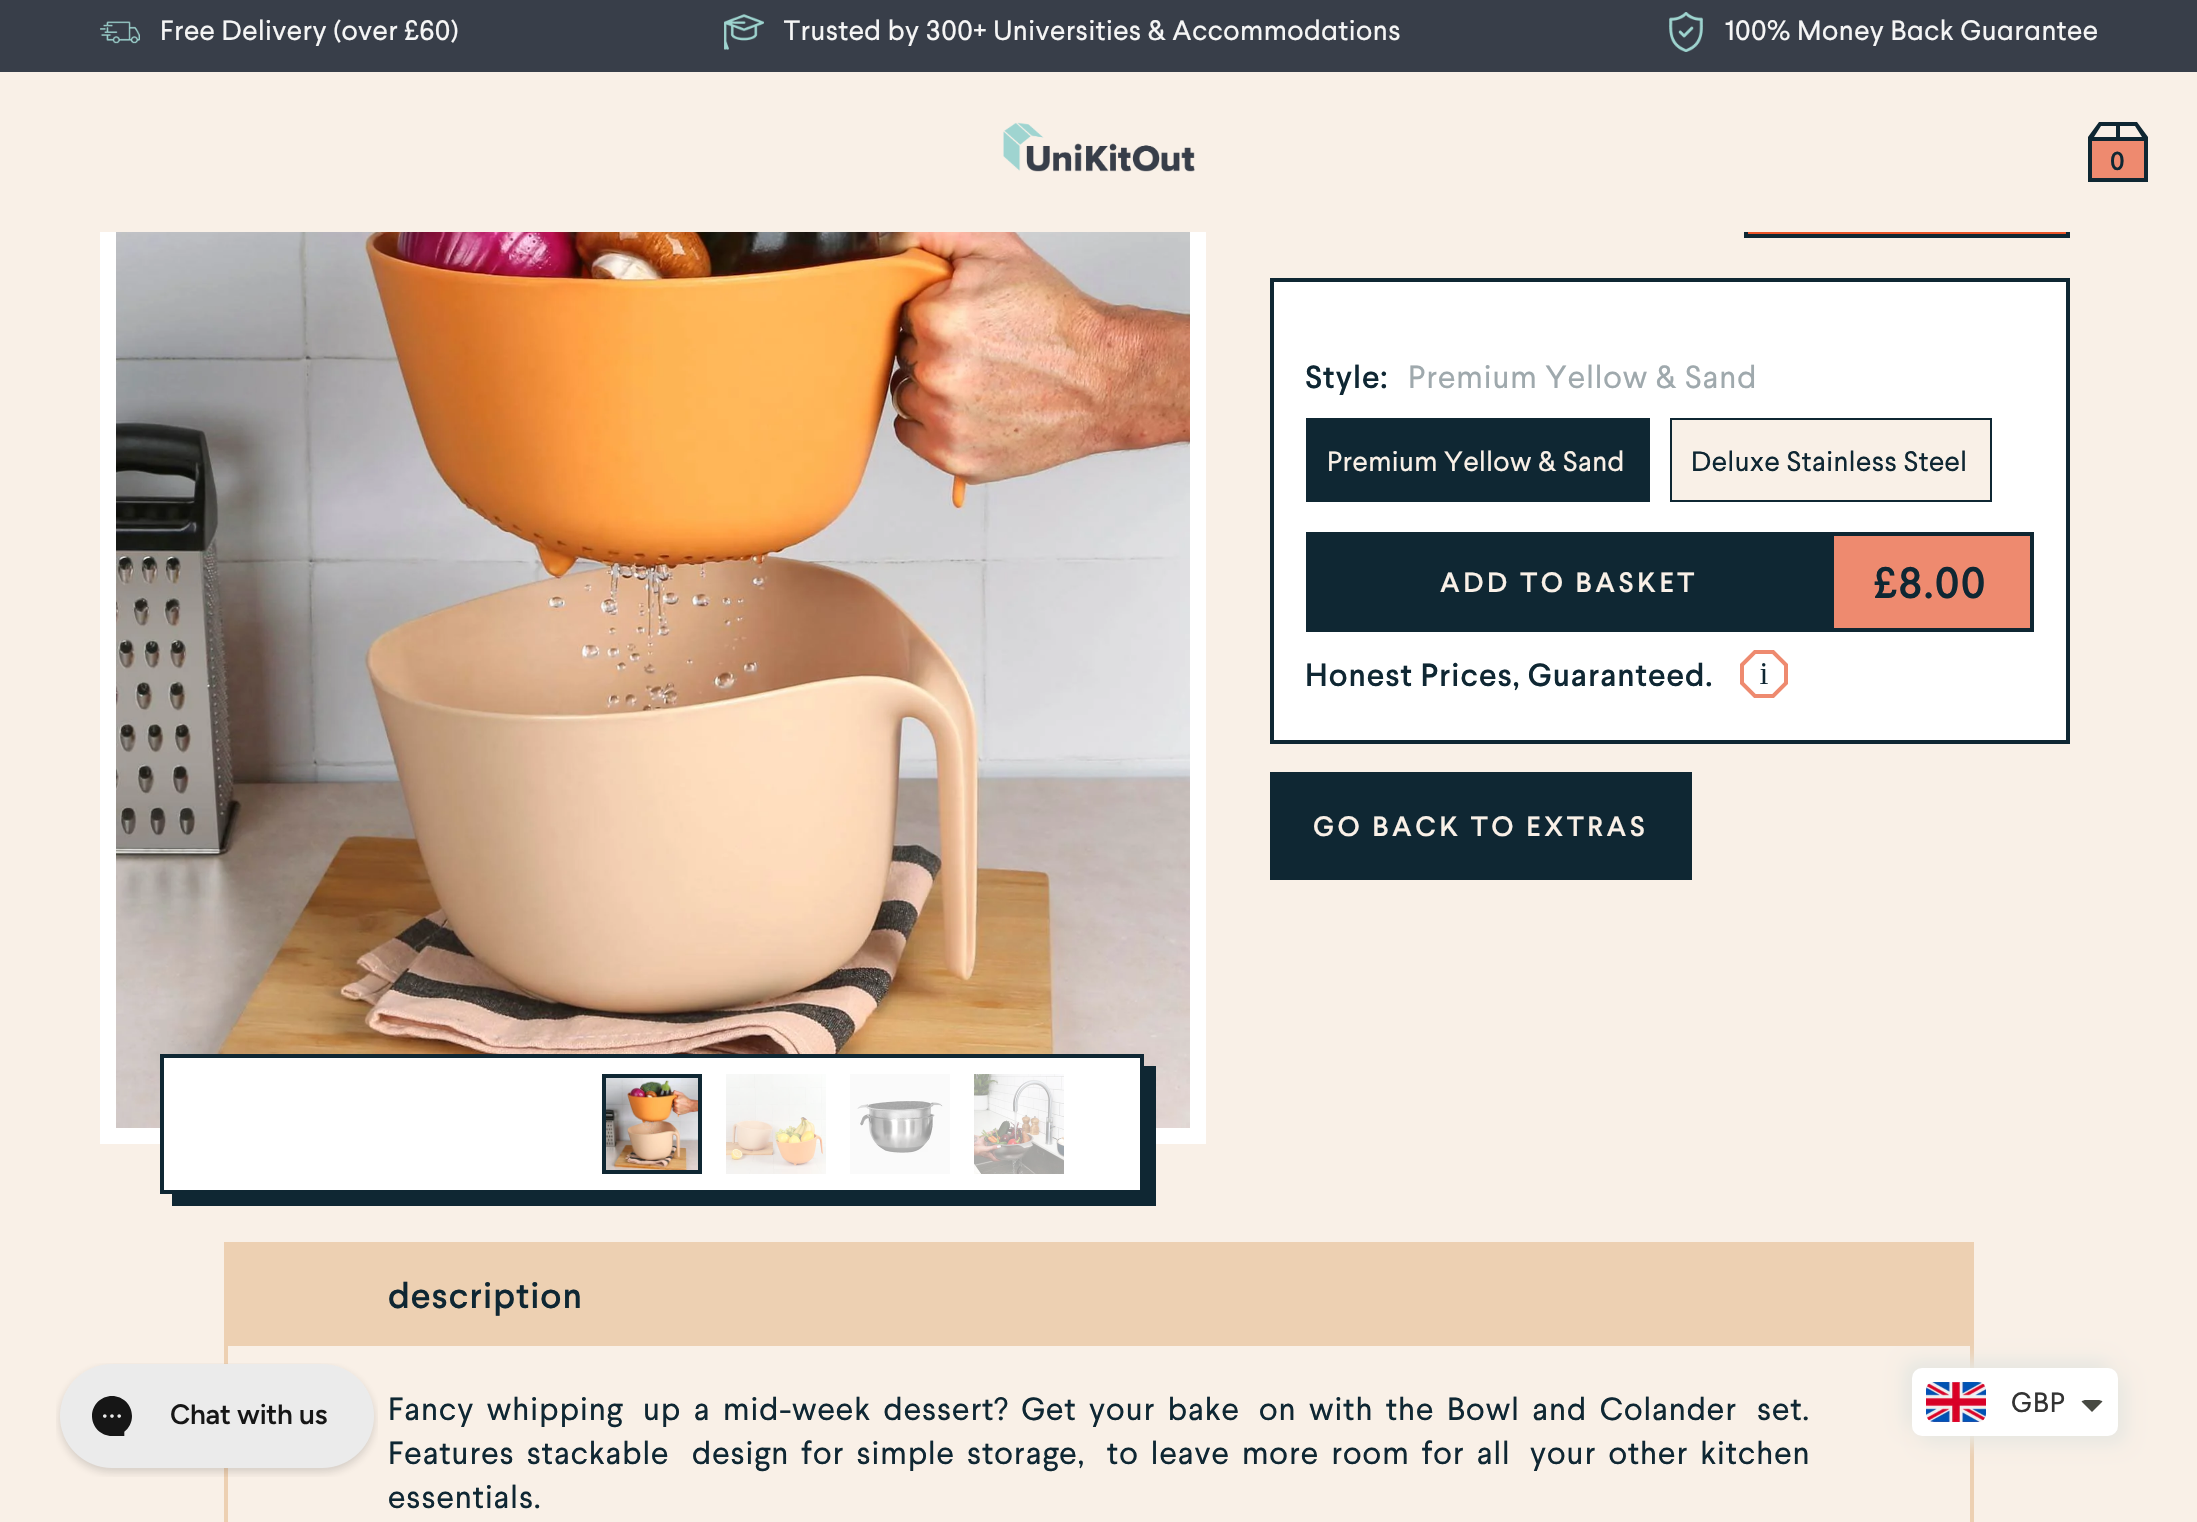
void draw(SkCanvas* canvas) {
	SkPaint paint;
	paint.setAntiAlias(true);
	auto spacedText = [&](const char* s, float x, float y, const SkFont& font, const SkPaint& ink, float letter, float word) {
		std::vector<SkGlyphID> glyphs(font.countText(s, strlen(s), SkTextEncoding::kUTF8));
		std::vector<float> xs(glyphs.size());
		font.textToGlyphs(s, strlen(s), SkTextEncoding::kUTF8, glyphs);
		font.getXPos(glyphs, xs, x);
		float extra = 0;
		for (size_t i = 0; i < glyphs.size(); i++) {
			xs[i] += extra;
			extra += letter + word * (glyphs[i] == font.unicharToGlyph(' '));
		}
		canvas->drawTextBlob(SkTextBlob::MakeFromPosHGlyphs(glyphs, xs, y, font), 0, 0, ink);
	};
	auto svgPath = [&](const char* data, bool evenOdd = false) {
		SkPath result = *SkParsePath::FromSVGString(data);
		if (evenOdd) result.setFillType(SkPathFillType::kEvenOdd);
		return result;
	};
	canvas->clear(0xfff9f0e7);
	paint.setStroke(true);
	paint.setStrokeWidth(16);
	paint.setColor(0xffffffff);
	canvas->drawRect(SkRect::MakeXYWH(108, 46, 1090, 1090), paint);
	paint.setStroke(false);
	paint.setColor(0xfff9f0e7);
	canvas->drawRect(SkRect::MakeXYWH(100, 72, 1106, 160), paint);
	paint.setColor(0xff383e49);
	canvas->drawRect(SkRect::MakeXYWH(0, 0, 2197, 72), paint);
	canvas->drawImageRect(SkImages::DeferredFromEncodedData(SkData::MakeFromFileName("img1.png")), SkRect::MakeXYWH(100, 21, 40, 23), SkSamplingOptions());
	SkFont f1(fontMgr->matchFamilyStyle("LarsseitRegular", SkFontStyle::Normal()), 28);
	f1.setSubpixel(true);
	paint.setColor(0xfff5f5f5);
	spacedText("Free Delivery (over £60)", 160, 40, f1, paint, 0.5, 0);
	canvas->drawImageRect(SkImages::DeferredFromEncodedData(SkData::MakeFromFileName("img2.png")), SkRect::MakeXYWH(724, 14, 40, 36), SkSamplingOptions());
	canvas->save();
	canvas->clipRect(SkRect::MakeXYWH(784, 12, 616, 40));
	SkFont f2(fontMgr->matchFamilyStyle("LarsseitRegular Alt", SkFontStyle::Normal()), 28);
	f2.setSubpixel(true);
	spacedText("Trusted by 300+ Universities & Accommodations", 783, 40, f2, paint, 0.5, 0);
	canvas->restore();
	canvas->drawImageRect(SkImages::DeferredFromEncodedData(SkData::MakeFromFileName("img3.png")), SkRect::MakeXYWH(1669, 12, 34, 40), SkSamplingOptions());
	spacedText("100% Money Back Guarantee", 1725, 40, f2, paint, 0.5, 0);
	canvas->drawImageRect(SkImages::DeferredFromEncodedData(SkData::MakeFromFileName("img4.png")), SkRect::MakeXYWH(1003, 122, 192, 50), SkSamplingOptions());
	paint.setColor(0xffee8a6f);
	canvas->drawRect(SkRect::MakeXYWH(2092, 141, 52, 37), paint);
	paint.setColor(0xff0f2733);
	canvas->drawPath(svgPath("M2148 137L2137 122H2099L2088 137V182H2148ZM2135 126L2142 137H2120V126ZM2101 126H2116V137H2094ZM2144 178H2092V141H2144Z"), paint);
	SkFont f3(fontMgr->matchFamilyStyle("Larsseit", SkFontStyle(500, SkFontStyle::kNormal_Width, SkFontStyle::kUpright_Slant)), 26);
	f3.setSubpixel(true);
	spacedText("0", 2110, 170, f3, paint, 0.5, 0);
	paint.setColor(0xffedd0b2);
	canvas->drawRect(SkRect::MakeXYWH(224, 1242, 1750, 104), paint);
	canvas->drawRect(SkRect::MakeXYWH(224, 1342, 4, 180), paint);
	canvas->drawImageRect(SkImages::DeferredFromEncodedData(SkData::MakeFromFileName("img5.png")), SkRect::MakeXYWH(56, 1363, 322, 114), SkSamplingOptions());
	canvas->drawImageRect(SkImages::DeferredFromEncodedData(SkData::MakeFromFileName("img6.png")), SkRect::MakeXYWH(116, 232, 1074, 896), SkSamplingOptions());
	paint.setColor(0xff0f2733);
	canvas->drawPath(svgPath("M172 1194V1206H1156V1066H1144V1194Z"), paint);
	paint.setColor(0xffffffff);
	canvas->drawRect(SkRect::MakeXYWH(162, 1056, 980, 136), paint);
	paint.setStroke(true);
	paint.setStrokeWidth(4);
	paint.setColor(0xff0f2733);
	canvas->drawRect(SkRect::MakeXYWH(162, 1056, 980, 136), paint);
	canvas->drawRect(SkRect::MakeXYWH(604, 1076, 96, 96), paint);
	canvas->drawImageRect(SkImages::DeferredFromEncodedData(SkData::MakeFromFileName("img7.png")), SkRect::MakeXYWH(606, 1078, 92, 92), SkSamplingOptions());
	canvas->drawImageRect(SkImages::DeferredFromEncodedData(SkData::MakeFromFileName("img8.png")), SkRect::MakeXYWH(726, 1074, 100, 100), SkSamplingOptions());
	canvas->drawImageRect(SkImages::DeferredFromEncodedData(SkData::MakeFromFileName("img9.png")), SkRect::MakeXYWH(850, 1074, 100, 100), SkSamplingOptions());
	canvas->drawImageRect(SkImages::DeferredFromEncodedData(SkData::MakeFromFileName("img10.png")), SkRect::MakeXYWH(974, 1074, 90, 100), SkSamplingOptions());
	paint.setStroke(false);
	paint.setColor(0xffea5428);
	canvas->drawRect(SkRect::MakeXYWH(1748, 232, 318, 2), paint);
	paint.setColor(0xff0f2733);
	canvas->drawRect(SkRect::MakeXYWH(2066, 232, 4, 6), paint);
	canvas->drawRect(SkRect::MakeXYWH(1744, 234, 326, 4), paint);
	canvas->drawRect(SkRect::MakeXYWH(1744, 232, 4, 6), paint);
	paint.setColor(0xffffffff);
	canvas->drawRect(SkRect::MakeXYWH(1272, 280, 796, 462), paint);
	paint.setStroke(true);
	paint.setColor(0xff0f2733);
	canvas->drawRect(SkRect::MakeXYWH(1272, 280, 796, 462), paint);
	SkFont f4(fontMgr->matchFamilyStyle("Larsseit", SkFontStyle(500, SkFontStyle::kNormal_Width, SkFontStyle::kUpright_Slant)), 32);
	f4.setSubpixel(true);
	paint.setStroke(false);
	spacedText("Style:", 1305, 388, f4, paint, 1, 0);
	SkFont f5(fontMgr->matchFamilyStyle("LarsseitRegular", SkFontStyle::Normal()), 32);
	f5.setSubpixel(true);
	paint.setColor(0xff9fa9ad);
	spacedText("Premium Yellow & Sand", 1408, 388, f5, paint, 1, 0);
	paint.setColor(0xff0f2733);
	canvas->drawRect(SkRect::MakeXYWH(1306, 418, 344, 84), paint);
	paint.setColor(0xfff9f0e7);
	spacedText("Premium Yellow & Sand", 1327, 471, f1, paint, 0.5, 0);
	canvas->drawRect(SkRect::MakeXYWH(1671, 419, 320, 82), paint);
	paint.setStroke(true);
	paint.setStrokeWidth(2);
	paint.setColor(0xff0f2733);
	canvas->drawRect(SkRect::MakeXYWH(1671, 419, 320, 82), paint);
	paint.setStroke(false);
	spacedText("Deluxe Stainless Steel", 1691, 471, f1, paint, 0.5, 0);
	canvas->drawRect(SkRect::MakeXYWH(1306, 532, 528, 100), paint);
	SkFont f6(fontMgr->matchFamilyStyle("Larsseit", SkFontStyle(500, SkFontStyle::kNormal_Width, SkFontStyle::kUpright_Slant)), 28);
	f6.setSubpixel(true);
	paint.setColor(0xfff9f0e7);
	spacedText("ADD TO BASKET", 1440, 592, f6, paint, 3.5, 0);
	paint.setColor(0xffee8a6f);
	canvas->drawRect(SkRect::MakeXYWH(1834, 536, 196, 92), paint);
	paint.setColor(0xff0f2733);
	canvas->drawRect(SkRect::MakeXYWH(1834, 532, 200, 4), paint);
	canvas->drawRect(SkRect::MakeXYWH(2030, 532, 4, 100), paint);
	canvas->drawRect(SkRect::MakeXYWH(1834, 628, 200, 4), paint);
	SkFont f7(fontMgr->matchFamilyStyle("Larsseit", SkFontStyle(500, SkFontStyle::kNormal_Width, SkFontStyle::kUpright_Slant)), 44);
	f7.setSubpixel(true);
	spacedText("£8.00", 1874, 598, f7, paint, 1.5, 0);
	spacedText("Honest Prices, Guaranteed.", 1305, 686, f4, paint, 1, 0);
	canvas->drawImageRect(SkImages::DeferredFromEncodedData(SkData::MakeFromFileName("img11.png")), SkRect::MakeXYWH(1740, 650, 48, 48), SkSamplingOptions());
	canvas->drawRect(SkRect::MakeXYWH(1270, 772, 422, 108), paint);
	paint.setColor(0xfff9f0e7);
	spacedText("GO BACK TO EXTRAS", 1313, 836, f6, paint, 3.5, 0);
	SkFont f8(fontMgr->matchFamilyStyle("Larsseit", SkFontStyle(500, SkFontStyle::kNormal_Width, SkFontStyle::kUpright_Slant)), 36);
	f8.setSubpixel(true);
	paint.setColor(0xff0f2733);
	spacedText("description", 388, 1308, f8, paint, 1, 0);
	paint.setColor(0xffedd0b2);
	canvas->drawRect(SkRect::MakeXYWH(1970, 1342, 4, 180), paint);
	paint.setColor(0xff0f2733);
	spacedText("Fancy whipping", 388, 1420, f5, paint, 1, 5);
	spacedText("up a mid-week dessert? Get your bake", 643, 1420, f5, paint, 1, 5);
	spacedText("on with the Bowl and Colander", 1259, 1420, f5, paint, 1, 5);
	spacedText("set.", 1757, 1420, f5, paint, 1, 5);
	spacedText("Features stackable", 388, 1464, f5, paint, 1, 4.6);
	spacedText("design for simple storage,", 692, 1464, f5, paint, 1, 4.6);
	spacedText("to leave more room for all", 1107, 1464, f5, paint, 1, 4.6);
	spacedText("your other kitchen", 1530, 1464, f5, paint, 1, 4.6);
	spacedText("essentials.", 388, 1508, f5, paint, 1, 0);
	paint.setColor(0xffe8e8e2);
	paint.setMaskFilter(SkMaskFilter::MakeBlur(kNormal_SkBlurStyle, 9));
	canvas->drawRoundRect(SkRect::MakeXYWH(1904, 1360, 206, 68), 10, 10, paint);
	paint.setMaskFilter(nullptr);
	paint.setMaskFilter(SkMaskFilter::MakeBlur(kNormal_SkBlurStyle, 9));
	canvas->drawRoundRect(SkRect::MakeXYWH(1920, 1376, 206, 68), 10, 10, paint);
	paint.setMaskFilter(nullptr);
	paint.setColor(0xffffffff);
	canvas->drawRoundRect(SkRect::MakeXYWH(1912, 1368, 206, 68), 10, 10, paint);
	canvas->drawImageRect(SkImages::DeferredFromEncodedData(SkData::MakeFromFileName("img12.png")), SkRect::MakeXYWH(1926, 1382, 60, 40), SkSamplingOptions());
	paint.setColor(0xff333333);
	spacedText("GBP", 2011, 1412, f1, paint, 1, 0);
	paint.setColor(0xff474942);
	canvas->drawPath(svgPath("M2086 1400C2084 1400 2083 1400.5 2081.5 1401.5L2092 1412L2102.5 1401.5C2101 1400.5 2100 1400 2098 1400Z"), paint);
}
